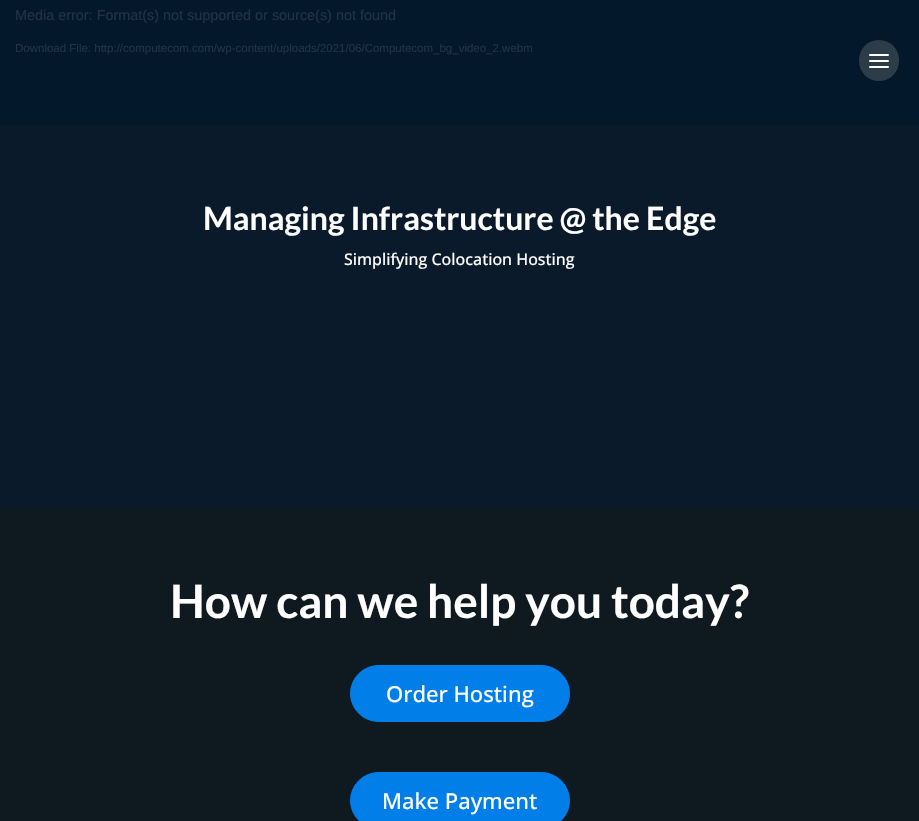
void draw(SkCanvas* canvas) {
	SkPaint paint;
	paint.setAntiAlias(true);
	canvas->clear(0xff0a1a2a);
	paint.setColor(0xff04182c);
	canvas->drawRect(SkRect::MakeXYWH(0, 0, 919, 125), paint);
	SkFont f1(fontMgr->matchFamilyStyle("Liberation Sans", SkFontStyle::Normal()), 14.4);
	f1.setSubpixel(true);
	paint.setColor(0xff1f3246);
	canvas->drawString("Media error: Format(s) not supported or source(s) not found", 15, 20, f1, paint);
	SkFont f2(fontMgr->matchFamilyStyle("Liberation Sans", SkFontStyle::Normal()), 11.5);
	f2.setSubpixel(true);
	canvas->drawString("Download File: http://computecom.com/wp-content/uploads/2021/06/Computecom_bg_video_2.webm", 15, 52, f2, paint);
	SkFont f3(fontMgr->matchFamilyStyle("Lato", SkFontStyle::Bold()), 32);
	f3.setSubpixel(true);
	paint.setColor(0xffffffff);
	canvas->drawString("Managing Infrastructure @ the Edge", 203, 230, f3, paint);
	SkFont f4(fontMgr->matchFamilyStyle("Open Sans", SkFontStyle(500, SkFontStyle::kNormal_Width, SkFontStyle::kUpright_Slant)), 16);
	f4.setSubpixel(true);
	canvas->drawString("Simplifying Colocation Hosting", 344, 265, f4, paint);
	paint.setColor(0xff0e1a1f);
	canvas->drawRect(SkRect::MakeXYWH(0, 509, 919, 312), paint);
	SkFont f5(fontMgr->matchFamilyStyle("Lato", SkFontStyle::Bold()), 46);
	f5.setSubpixel(true);
	paint.setColor(0xffffffff);
	canvas->drawString("How can we help you today?", 170, 618, f5, paint);
	paint.setColor(0xff027ee9);
	canvas->drawRoundRect(SkRect::MakeXYWH(350.5, 665.5, 219, 56), 28, 28, paint);
	paint.setStroke(true);
	paint.setStrokeWidth(1);
	canvas->drawRoundRect(SkRect::MakeXYWH(350.5, 665.5, 219, 56), 28, 28, paint);
	SkFont f6(fontMgr->matchFamilyStyle("Open Sans", SkFontStyle(500, SkFontStyle::kNormal_Width, SkFontStyle::kUpright_Slant)), 22);
	f6.setSubpixel(true);
	paint.setStroke(false);
	paint.setColor(0xffffffff);
	canvas->drawString("Order Hosting", 386, 702, f6, paint);
	paint.setColor(0xff027ee9);
	canvas->drawRoundRect(SkRect::MakeXYWH(350.5, 772.5, 219, 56), 28, 28, paint);
	paint.setStroke(true);
	canvas->drawRoundRect(SkRect::MakeXYWH(350.5, 772.5, 219, 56), 28, 28, paint);
	paint.setStroke(false);
	paint.setColor(0xffffffff);
	canvas->drawString("Make Payment", 382, 809, f6, paint);
	paint.setColor(0xff2c3d49);
	canvas->drawRoundRect(SkRect::MakeXYWH(859, 40, 40, 41), 20, 20, paint);
	paint.setColor(0xffffffff);
	canvas->drawRoundRect(SkRect::MakeXYWH(869, 54, 20, 2), 1, 1, paint);
	canvas->drawRoundRect(SkRect::MakeXYWH(869, 60, 20, 2), 1, 1, paint);
	canvas->drawRoundRect(SkRect::MakeXYWH(869, 66, 20, 2), 1, 1, paint);
}
